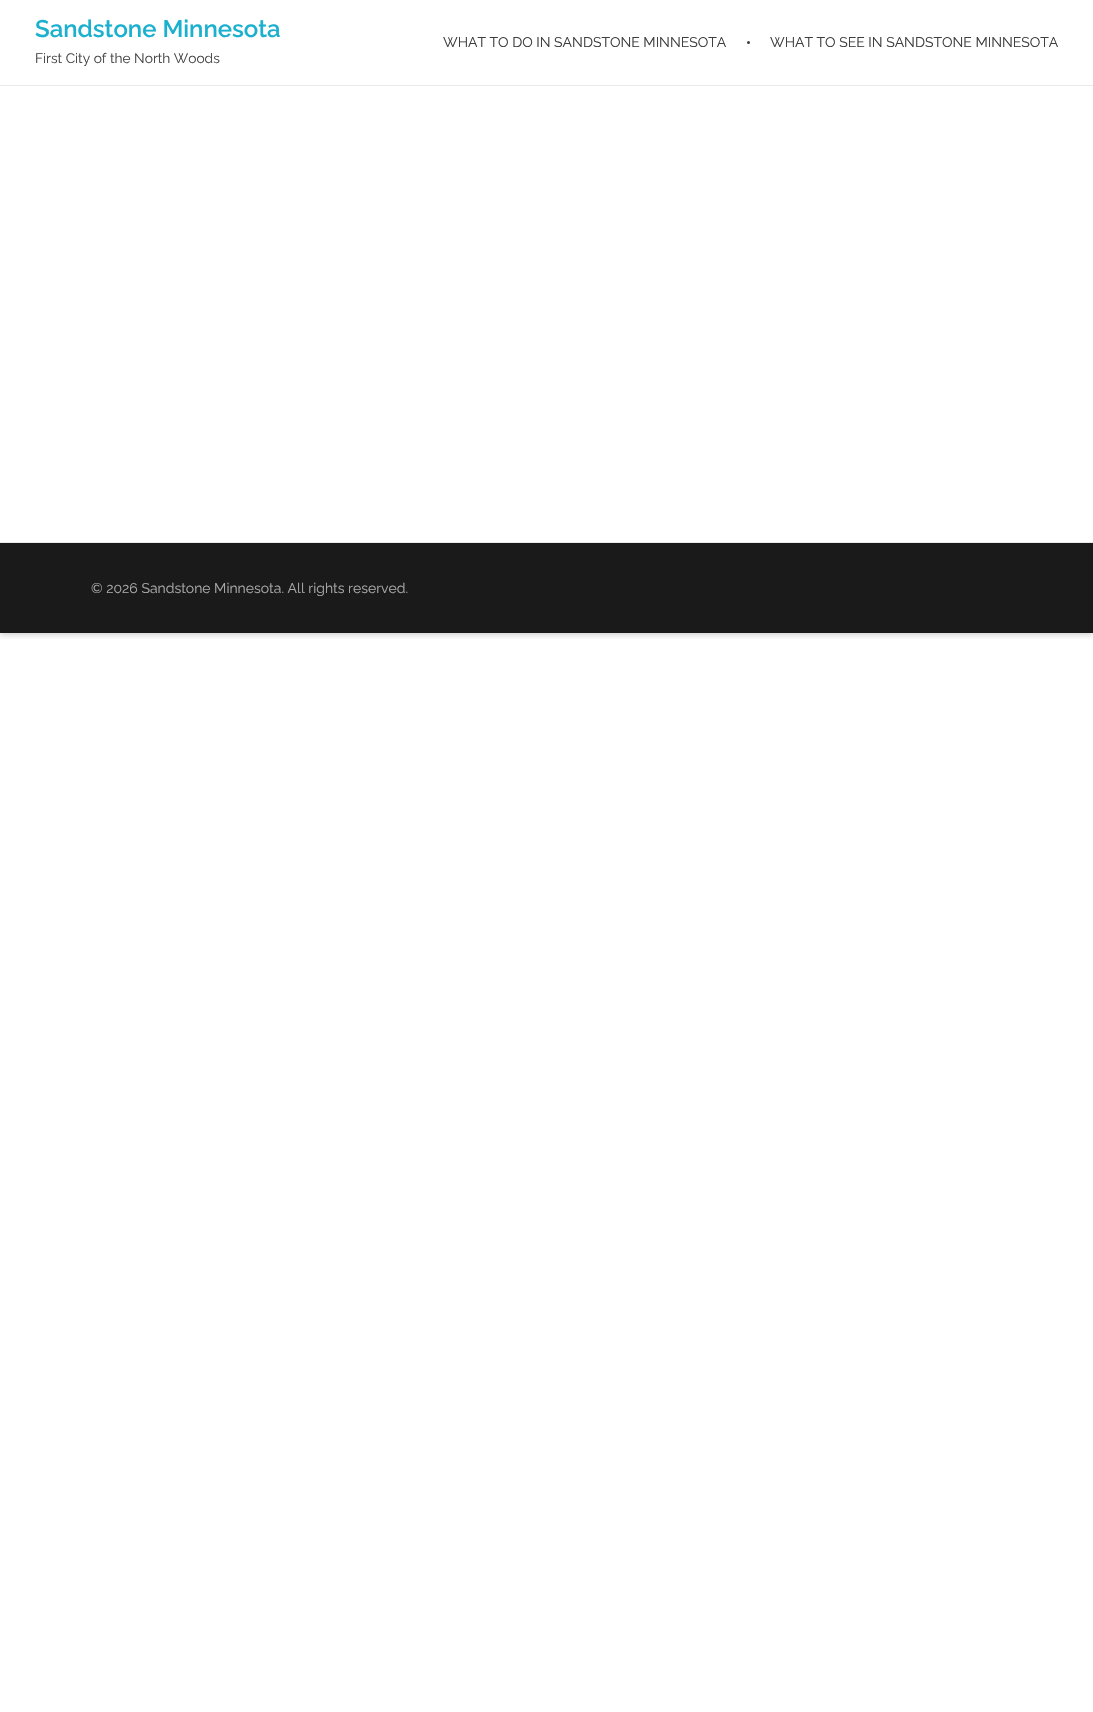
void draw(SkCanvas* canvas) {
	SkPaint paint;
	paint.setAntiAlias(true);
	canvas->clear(0xffffffff);
	canvas->save();
	canvas->clipRect(SkRect::MakeXYWH(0, 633, 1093, 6));
	paint.setColor(0x4d646464);
	paint.setMaskFilter(SkMaskFilter::MakeBlur(kNormal_SkBlurStyle, 3));
	canvas->drawRect(SkRect::MakeXYWH(0, 2, 1093, 633), paint);
	paint.setMaskFilter(nullptr);
	canvas->restore();
	paint.setColor(0xffeaeaea);
	canvas->drawRect(SkRect::MakeXYWH(0, 85, 1093, 1), paint);
	SkFont f1(fontMgr->matchFamilyStyle("Raleway", SkFontStyle(600, SkFontStyle::kNormal_Width, SkFontStyle::kUpright_Slant)), 24);
	f1.setSubpixel(true);
	paint.setColor(0xff1bb0ce);
	canvas->drawString("Sandstone Minnesota", 35, 37, f1, paint);
	SkFont f2(fontMgr->matchFamilyStyle("Raleway", SkFontStyle::Normal()), 13.75);
	f2.setSubpixel(true);
	paint.setColor(0xff444444);
	canvas->drawString("First City of the North Woods", 35, 63, f2, paint);
	SkFont f3(fontMgr->matchFamilyStyle("Raleway", SkFontStyle::Normal()), 14);
	f3.setSubpixel(true);
	paint.setColor(0xff3d3d3d);
	canvas->drawString("WHAT TO DO IN SANDSTONE MINNESOTA", 443, 47, f3, paint);
	canvas->drawCircle(748.5, 42.5, 1.5, paint);
	canvas->drawString("WHAT TO SEE IN SANDSTONE MINNESOTA", 770, 47, f3, paint);
	paint.setColor(0xff1a1a1a);
	canvas->drawRect(SkRect::MakeXYWH(0, 543, 1093, 90), paint);
	paint.setColor(0xffeaeaea);
	canvas->drawRect(SkRect::MakeXYWH(0, 542, 1093, 1), paint);
	paint.setColor(0xffaaaaaa);
	canvas->drawString("© 2026 Sandstone Minnesota. All rights reserved.", 91, 593, f3, paint);
}
